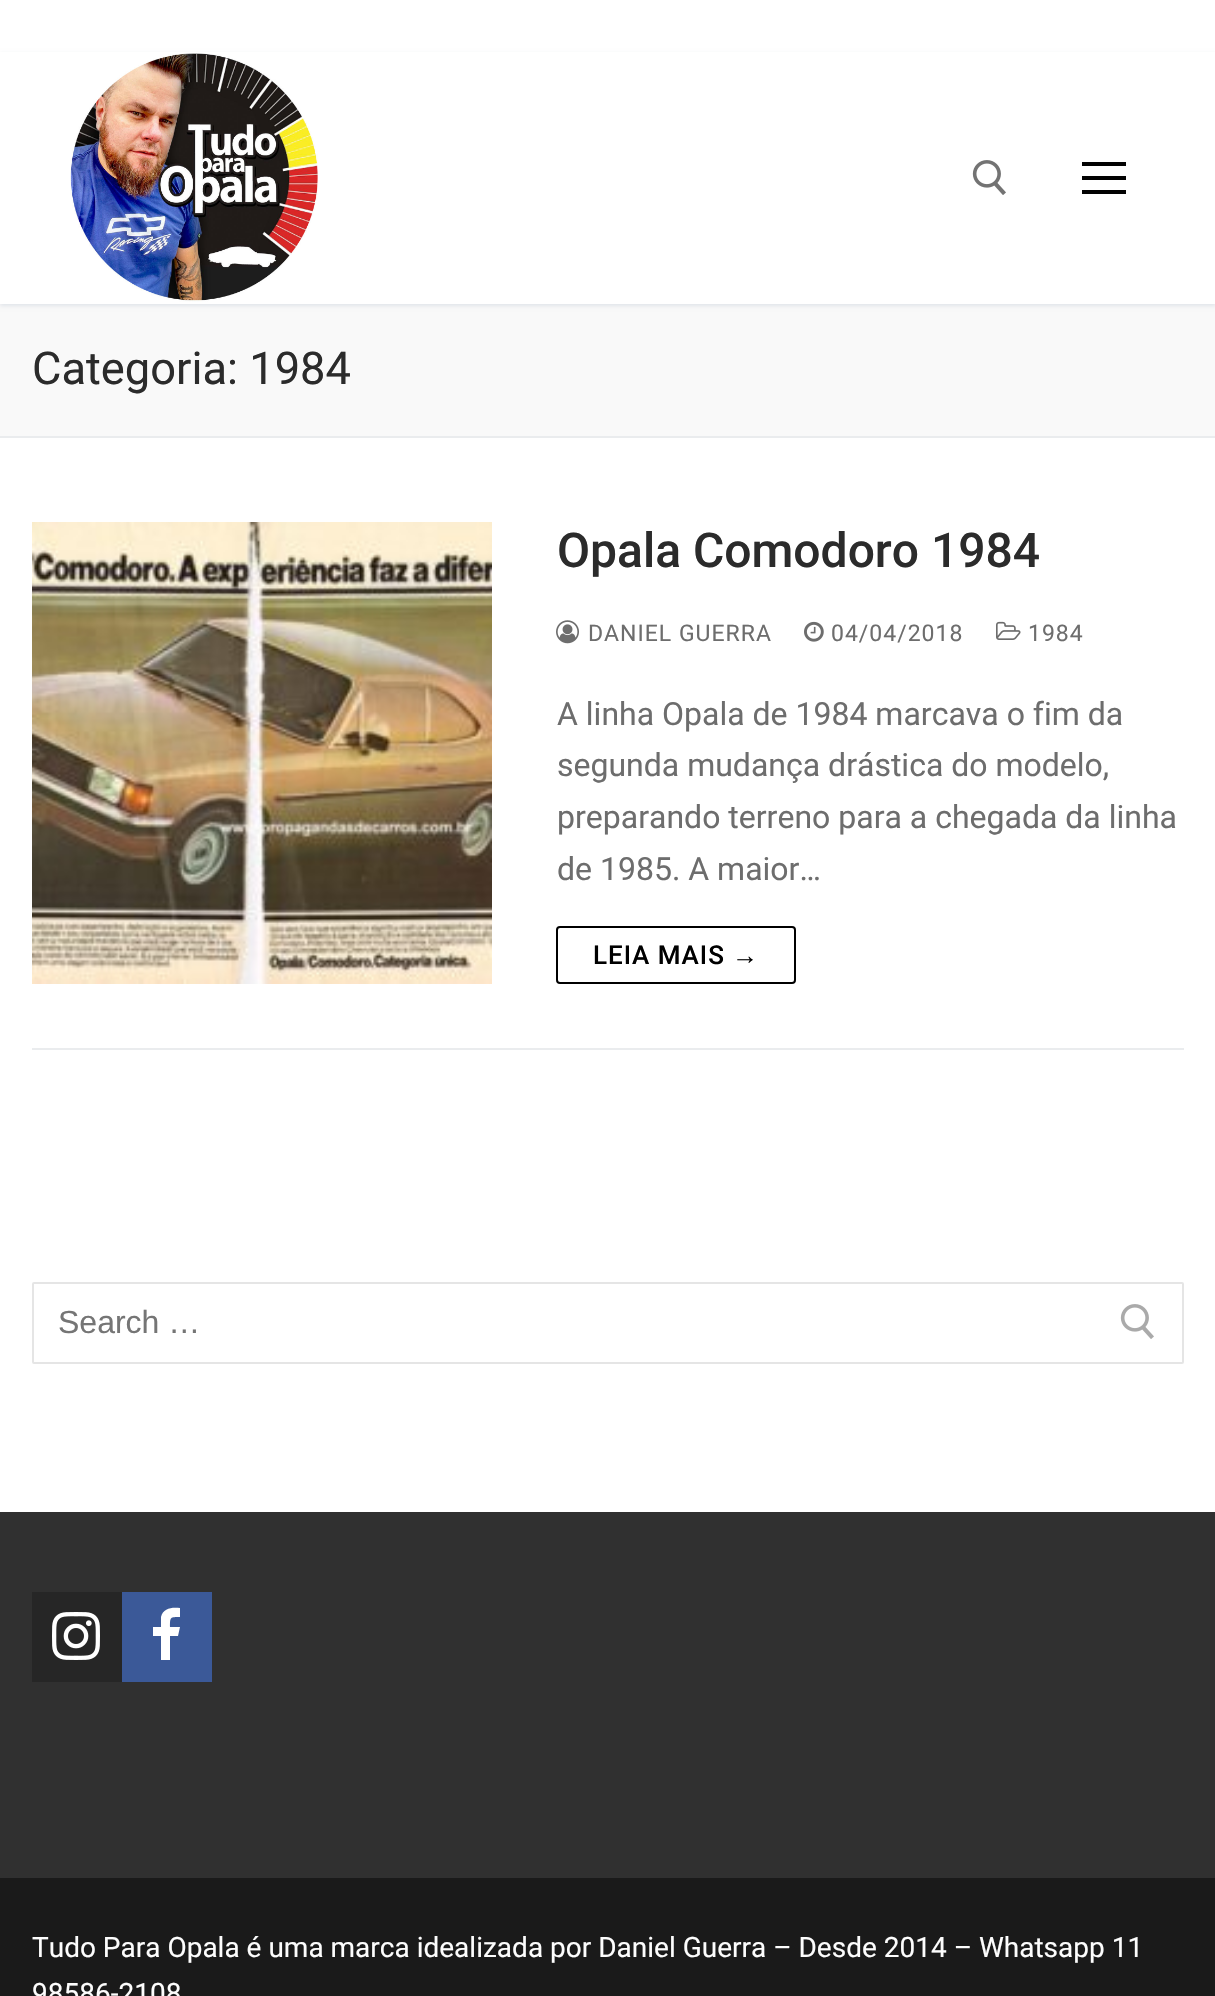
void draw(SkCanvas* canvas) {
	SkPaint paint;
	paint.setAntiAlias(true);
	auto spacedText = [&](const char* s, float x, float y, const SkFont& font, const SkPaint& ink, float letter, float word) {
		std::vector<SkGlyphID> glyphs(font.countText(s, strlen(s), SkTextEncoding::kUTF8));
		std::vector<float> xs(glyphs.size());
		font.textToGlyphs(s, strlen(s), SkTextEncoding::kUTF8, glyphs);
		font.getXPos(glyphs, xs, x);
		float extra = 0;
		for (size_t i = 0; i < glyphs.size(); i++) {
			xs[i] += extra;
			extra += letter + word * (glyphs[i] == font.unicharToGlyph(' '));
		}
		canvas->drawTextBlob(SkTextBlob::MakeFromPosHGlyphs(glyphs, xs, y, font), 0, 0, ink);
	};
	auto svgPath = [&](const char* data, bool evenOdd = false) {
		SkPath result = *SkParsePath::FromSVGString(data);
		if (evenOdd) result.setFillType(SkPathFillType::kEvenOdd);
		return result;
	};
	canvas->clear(0xffffffff);
	paint.setColor(0xfff9f9f9);
	canvas->drawRect(SkRect::MakeXYWH(0, 304, 1215, 132), paint);
	canvas->save();
	canvas->clipPath(svgPath("M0 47H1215V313H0ZM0 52H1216V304H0Z", true), true);
	paint.setColor(0xffe1e5ea);
	paint.setMaskFilter(SkMaskFilter::MakeBlur(kNormal_SkBlurStyle, 2));
	canvas->drawRect(SkRect::MakeXYWH(0, 54, 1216, 252), paint);
	paint.setMaskFilter(nullptr);
	canvas->restore();
	canvas->drawImageRect(SkImages::DeferredFromEncodedData(SkData::MakeFromFileName("img1.png")), SkRect::MakeXYWH(70, 53, 248, 249), SkSamplingOptions());
	canvas->drawImageRect(SkImages::DeferredFromEncodedData(SkData::MakeFromFileName("img2.png")), SkRect::MakeXYWH(972, 160, 34, 35), SkSamplingOptions());
	paint.setColor(0xff020202);
	canvas->drawRect(SkRect::MakeXYWH(1082, 176, 44, 4), paint);
	canvas->drawRect(SkRect::MakeXYWH(1082, 162, 44, 4), paint);
	canvas->drawRect(SkRect::MakeXYWH(1082, 190, 44, 4), paint);
	paint.setColor(0xffeaecee);
	canvas->drawRect(SkRect::MakeXYWH(0, 436, 1215, 2), paint);
	SkFont f1(fontMgr->matchFamilyStyle("Roboto", SkFontStyle::Normal()), 45.25);
	f1.setSubpixel(true);
	paint.setColor(0xff2b2b2b);
	canvas->drawString("Categoria: 1984", 32, 384, f1, paint);
	paint.setColor(0xffeaecee);
	canvas->drawRect(SkRect::MakeXYWH(32, 1048, 1152, 2), paint);
	canvas->drawImageRect(SkImages::DeferredFromEncodedData(SkData::MakeFromFileName("img3.png")), SkRect::MakeXYWH(32, 522, 460, 462), SkSamplingOptions());
	SkFont f2(fontMgr->matchFamilyStyle("Roboto", SkFontStyle(500, SkFontStyle::kNormal_Width, SkFontStyle::kUpright_Slant)), 48);
	f2.setSubpixel(true);
	paint.setColor(0xff2b2b2b);
	canvas->drawString("Opala Comodoro 1984", 557, 567, f2, paint);
	canvas->drawImageRect(SkImages::DeferredFromEncodedData(SkData::MakeFromFileName("img4.png")), SkRect::MakeXYWH(556, 620, 23, 24), SkSamplingOptions());
	SkFont f3(fontMgr->matchFamilyStyle("Roboto", SkFontStyle::Normal()), 23);
	f3.setSubpixel(true);
	paint.setColor(0xff6d6d6d);
	spacedText("DANIEL GUERRA", 588, 641, f3, paint, 1, 0);
	canvas->drawImageRect(SkImages::DeferredFromEncodedData(SkData::MakeFromFileName("img5.png")), SkRect::MakeXYWH(804, 621, 20, 21), SkSamplingOptions());
	spacedText("04/04/2018", 831, 641, f3, paint, 1, 0);
	canvas->drawImageRect(SkImages::DeferredFromEncodedData(SkData::MakeFromFileName("img6.png")), SkRect::MakeXYWH(996, 621, 25, 19), SkSamplingOptions());
	spacedText("1984", 1028, 641, f3, paint, 1, 0);
	SkFont f4(fontMgr->matchFamilyStyle("Roboto", SkFontStyle::Normal()), 32);
	f4.setSubpixel(true);
	canvas->drawString("A linha Opala de 1984 marcava o fim da", 557, 725, f4, paint);
	canvas->drawString("segunda mudança drástica do modelo,", 557, 776, f4, paint);
	canvas->drawString("preparando terreno para a chegada da linha", 557, 828, f4, paint);
	canvas->drawString("de 1985. A maior…", 557, 880, f4, paint);
	paint.setStroke(true);
	paint.setStrokeWidth(2);
	paint.setColor(0xff000000);
	canvas->drawRoundRect(SkRect::MakeXYWH(557, 927, 238, 56), 3, 3, paint);
	SkFont f5(fontMgr->matchFamilyStyle("Roboto", SkFontStyle(500, SkFontStyle::kNormal_Width, SkFontStyle::kUpright_Slant)), 26);
	f5.setSubpixel(true);
	paint.setStroke(false);
	spacedText("LEIA MAIS", 593, 964, f5, paint, 1, 0);
	SkFont f6(fontMgr->matchFamilyStyle("Liberation Sans", SkFontStyle::Normal()), 26);
	f6.setSubpixel(true);
	spacedText("→", 732, 964, f6, paint, 1, 0);
	paint.setStroke(true);
	paint.setColor(0xffe5e5e5);
	canvas->drawRoundRect(SkRect::MakeXYWH(33, 1283, 1150, 80), 1, 1, paint);
	SkFont f7(fontMgr->matchFamilyStyle("Liberation Sans", SkFontStyle::Normal()), 32);
	f7.setSubpixel(true);
	paint.setStroke(false);
	paint.setColor(0xff757575);
	canvas->drawString("Search …", 58, 1333, f7, paint);
	canvas->drawImageRect(SkImages::DeferredFromEncodedData(SkData::MakeFromFileName("img7.png")), SkRect::MakeXYWH(1120, 1304, 34, 35), SkSamplingOptions());
	paint.setColor(0xff303030);
	canvas->drawRect(SkRect::MakeXYWH(0, 1512, 1215, 366), paint);
	paint.setColor(0xff262626);
	canvas->drawRect(SkRect::MakeXYWH(32, 1592, 90, 90), paint);
	canvas->drawImageRect(SkImages::DeferredFromEncodedData(SkData::MakeFromFileName("img8.png")), SkRect::MakeXYWH(52, 1612, 48, 48), SkSamplingOptions());
	paint.setColor(0xff3b5998);
	canvas->drawRect(SkRect::MakeXYWH(122, 1592, 90, 90), paint);
	paint.setColor(0xffffffff);
	canvas->drawPath(svgPath("M180 1608V1617C170 1617 170 1617 170 1627H180L178 1636H170V1660H161V1636H153V1627H161V1617C163 1608 172 1607 180 1608Z"), paint);
	paint.setColor(0xff1a1a1a);
	canvas->drawRect(SkRect::MakeXYWH(0, 1878, 1215, 118), paint);
	SkFont f8(fontMgr->matchFamilyStyle("Roboto", SkFontStyle::Normal()), 28);
	f8.setSubpixel(true);
	paint.setColor(0xfffdfdfd);
	canvas->drawString("Tudo Para Opala é uma marca idealizada por Daniel Guerra – Desde 2014 – Whatsapp 11", 32, 1957, f8, paint);
	canvas->drawString("98586-2108", 32, 2003, f8, paint);
}
